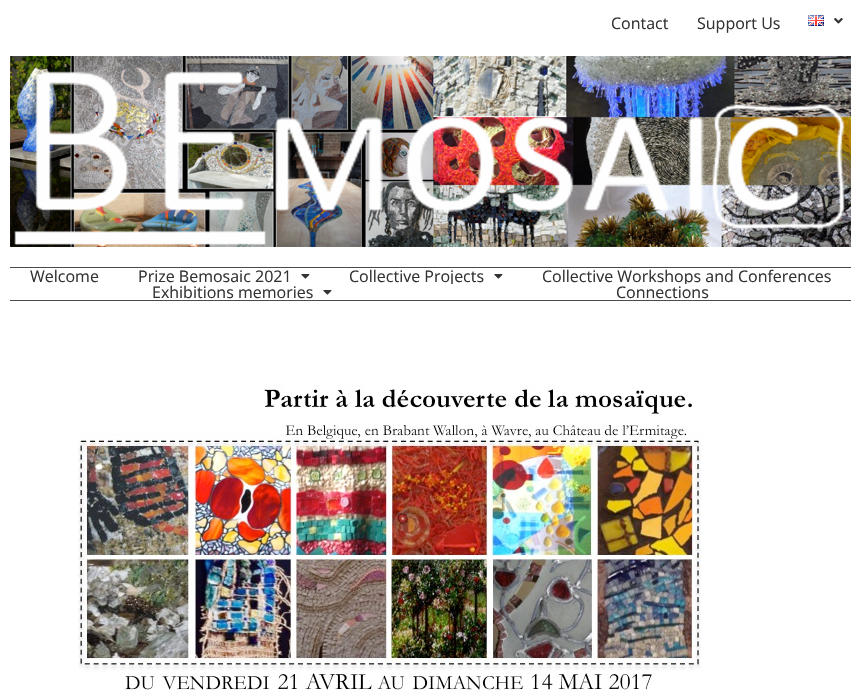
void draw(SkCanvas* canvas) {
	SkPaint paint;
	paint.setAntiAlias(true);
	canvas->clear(0xffffffff);
	SkFont f1(fontMgr->matchFamilyStyle("Open Sans", SkFontStyle::Normal()), 16);
	f1.setSubpixel(true);
	paint.setColor(0xff333333);
	canvas->drawString("Contact", 611, 29, f1, paint);
	canvas->drawString("Support Us", 697, 29, f1, paint);
	canvas->drawImageRect(SkImages::DeferredFromEncodedData(SkData::MakeFromFileName("img1.png")), SkRect::MakeXYWH(808, 15, 16, 11), SkSamplingOptions());
	canvas->drawImageRect(SkImages::DeferredFromEncodedData(SkData::MakeFromFileName("img2.png")), SkRect::MakeXYWH(834, 18, 9, 6), SkSamplingOptions());
	canvas->drawImageRect(SkImages::DeferredFromEncodedData(SkData::MakeFromFileName("img3.png")), SkRect::MakeXYWH(10, 56, 841, 191), SkSamplingOptions());
	paint.setColor(0xff4a4a4a);
	canvas->drawRect(SkRect::MakeXYWH(10, 267, 841, 1), paint);
	canvas->drawRect(SkRect::MakeXYWH(10, 300, 841, 1), paint);
	paint.setColor(0xff333333);
	canvas->drawString("Welcome", 30, 282, f1, paint);
	canvas->drawString("Prize Bemosaic 2021", 138, 282, f1, paint);
	canvas->drawImageRect(SkImages::DeferredFromEncodedData(SkData::MakeFromFileName("img4.png")), SkRect::MakeXYWH(301, 274, 9, 5), SkSamplingOptions());
	canvas->drawString("Collective Projects", 349, 282, f1, paint);
	canvas->drawImageRect(SkImages::DeferredFromEncodedData(SkData::MakeFromFileName("img4.png")), SkRect::MakeXYWH(494, 274, 9, 5), SkSamplingOptions());
	canvas->drawString("Collective Workshops and Conferences", 542, 282, f1, paint);
	paint.setColor(0xffffffff);
	canvas->drawRect(SkRect::MakeXYWH(449, 284, 4, 2), paint);
	paint.setColor(0xff333333);
	canvas->drawString("Exhibitions memories", 152, 298, f1, paint);
	canvas->drawImageRect(SkImages::DeferredFromEncodedData(SkData::MakeFromFileName("img4.png")), SkRect::MakeXYWH(323, 290, 9, 5), SkSamplingOptions());
	paint.setColor(0xffffffff);
	canvas->drawRect(SkRect::MakeXYWH(685, 284, 2, 2), paint);
	paint.setColor(0xff333333);
	canvas->drawString("Connections", 616, 298, f1, paint);
	canvas->drawImageRect(SkImages::DeferredFromEncodedData(SkData::MakeFromFileName("img5.png")), SkRect::MakeXYWH(78, 385, 624, 311), SkSamplingOptions());
}
